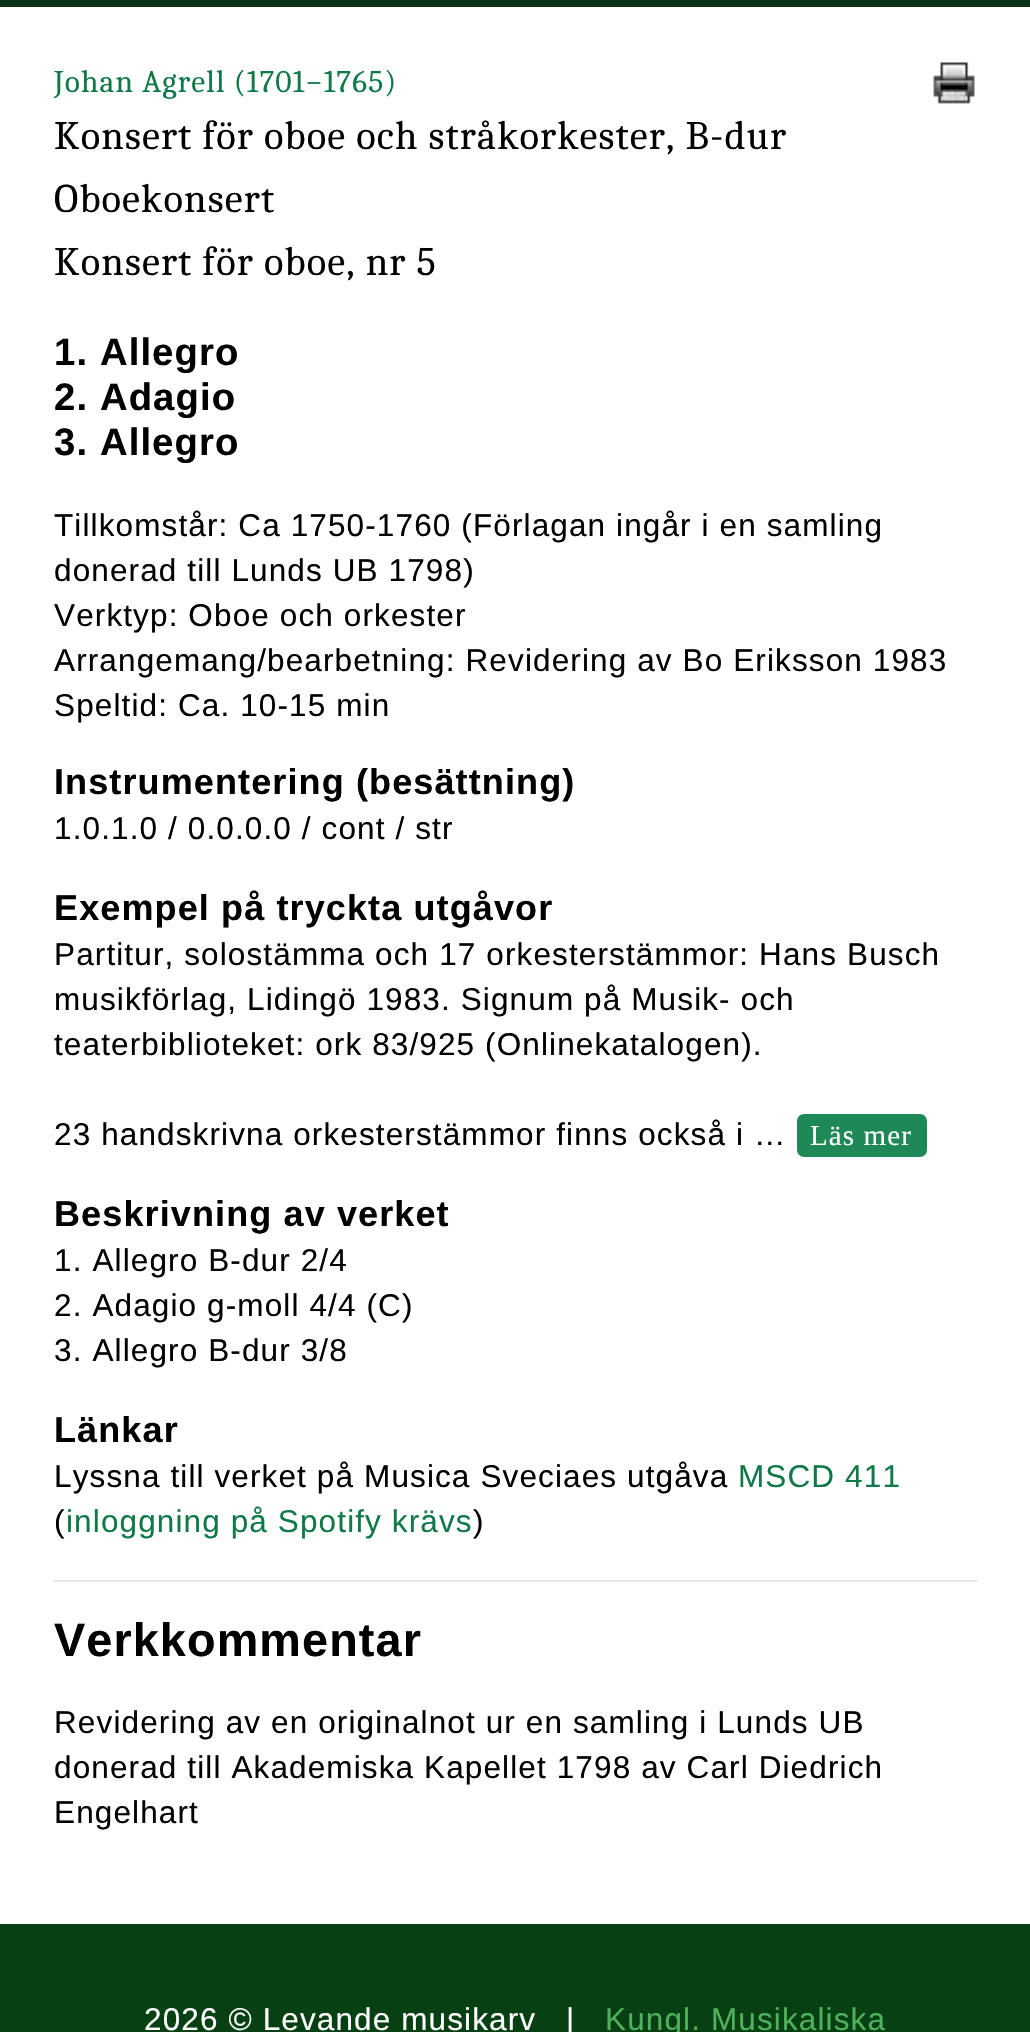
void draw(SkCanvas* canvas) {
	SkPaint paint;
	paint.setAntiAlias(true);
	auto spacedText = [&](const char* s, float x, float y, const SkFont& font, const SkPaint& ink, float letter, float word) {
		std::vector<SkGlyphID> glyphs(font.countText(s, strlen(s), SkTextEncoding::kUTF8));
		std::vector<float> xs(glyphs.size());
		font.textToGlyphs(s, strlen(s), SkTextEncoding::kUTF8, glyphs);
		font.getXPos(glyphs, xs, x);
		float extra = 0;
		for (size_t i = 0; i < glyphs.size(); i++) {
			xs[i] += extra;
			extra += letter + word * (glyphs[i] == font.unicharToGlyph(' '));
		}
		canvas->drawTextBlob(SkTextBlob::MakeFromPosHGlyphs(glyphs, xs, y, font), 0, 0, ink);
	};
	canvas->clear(0xff074113);
	paint.setColor(0xff093314);
	canvas->drawRect(SkRect::MakeXYWH(0, 0, 1030, 7), paint);
	paint.setColor(0xffffffff);
	canvas->drawRect(SkRect::MakeXYWH(0, 7, 1030, 1917), paint);
	SkFont f1(fontMgr->matchFamilyStyle("Caladea", SkFontStyle::Normal()), 31.5);
	f1.setSubpixel(true);
	paint.setColor(0xff107948);
	spacedText("Johan Agrell (1701−1765)", 54, 92, f1, paint, 1.12, 0);
	canvas->drawImageRect(SkImages::DeferredFromEncodedData(SkData::MakeFromFileName("img1.png")), SkRect::MakeXYWH(933, 62, 42, 42), SkSamplingOptions());
	SkFont f2(fontMgr->matchFamilyStyle("Caladea", SkFontStyle::Normal()), 40.5);
	f2.setSubpixel(true);
	paint.setColor(0xff000000);
	spacedText("Konsert för oboe och stråkorkester, B-dur", 54, 149, f2, paint, 1.12, 0);
	spacedText("Oboekonsert", 54, 212, f2, paint, 1.12, 0);
	spacedText("Konsert för oboe, nr 5", 54, 275, f2, paint, 1.12, 0);
	SkFont f3(fontMgr->matchFamilyStyle("Liberation Sans", SkFontStyle::Bold()), 38.25);
	f3.setSubpixel(true);
	spacedText("1. Allegro", 54, 365, f3, paint, 1.12, 0);
	spacedText("2. Adagio", 54, 410, f3, paint, 1.12, 0);
	spacedText("3. Allegro", 54, 455, f3, paint, 1.12, 0);
	SkFont f4(fontMgr->matchFamilyStyle("Liberation Sans", SkFontStyle::Normal()), 31.5);
	f4.setSubpixel(true);
	spacedText("Tillkomstår: Ca 1750-1760 (Förlagan ingår i en samling", 54, 536, f4, paint, 1.12, 0);
	spacedText("donerad till Lunds UB 1798)", 54, 581, f4, paint, 1.12, 0);
	spacedText("Verktyp: Oboe och orkester", 54, 626, f4, paint, 1.12, 0);
	spacedText("Arrangemang/bearbetning: Revidering av Bo Eriksson 1983", 54, 671, f4, paint, 1.12, 0);
	spacedText("Speltid: Ca. 10-15 min", 54, 716, f4, paint, 1.12, 0);
	SkFont f5(fontMgr->matchFamilyStyle("Liberation Sans", SkFontStyle::Bold()), 36);
	f5.setSubpixel(true);
	spacedText("Instrumentering (besättning)", 54, 794, f5, paint, 1.12, 0);
	spacedText("1.0.1.0 / 0.0.0.0 / cont / str", 54, 839, f4, paint, 1.12, 0);
	spacedText("Exempel på tryckta utgåvor", 54, 920, f5, paint, 1.12, 0);
	spacedText("Partitur, solostämma och 17 orkesterstämmor: Hans Busch", 54, 965, f4, paint, 1.12, 0);
	spacedText("musikförlag, Lidingö 1983. Signum på Musik- och", 54, 1010, f4, paint, 1.12, 0);
	spacedText("teaterbiblioteket: ork 83/925 (Onlinekatalogen).", 54, 1055, f4, paint, 1.12, 0);
	spacedText("23 handskrivna orkesterstämmor finns också i …", 54, 1145, f4, paint, 1.12, 0);
	paint.setColor(0xff1e8957);
	canvas->drawRoundRect(SkRect::MakeXYWH(797, 1114, 130, 43), 7, 7, paint);
	SkFont f6(fontMgr->matchFamilyStyle("Liberation Serif", SkFontStyle::Normal()), 29);
	f6.setSubpixel(true);
	paint.setColor(0xffffffff);
	spacedText("Läs mer", 810, 1145, f6, paint, 1.12, 0);
	paint.setColor(0xff000000);
	spacedText("Beskrivning av verket", 54, 1226, f5, paint, 1.12, 0);
	spacedText("1. Allegro B-dur 2/4", 54, 1271, f4, paint, 1.12, 0);
	spacedText("2. Adagio g-moll 4/4 (C)", 54, 1316, f4, paint, 1.12, 0);
	spacedText("3. Allegro B-dur 3/8", 54, 1361, f4, paint, 1.12, 0);
	spacedText("Länkar", 54, 1442, f5, paint, 1.12, 0);
	spacedText("Lyssna till verket på Musica Sveciaes utgåva", 54, 1487, f4, paint, 1.12, 0);
	paint.setColor(0xff107948);
	spacedText("MSCD 411", 738, 1487, f4, paint, 1.12, 0);
	paint.setColor(0xff000000);
	spacedText("(", 54, 1532, f4, paint, 1.12, 0);
	paint.setColor(0xff107948);
	spacedText("inloggning på Spotify krävs", 66, 1532, f4, paint, 1.12, 0);
	paint.setColor(0xff000000);
	spacedText(")", 473, 1532, f4, paint, 1.12, 0);
	paint.setColor(0xffe5e7eb);
	canvas->drawRect(SkRect::MakeXYWH(54, 1580, 923, 2), paint);
	SkFont f7(fontMgr->matchFamilyStyle("Liberation Sans", SkFontStyle::Bold()), 46.75);
	f7.setSubpixel(true);
	paint.setColor(0xff000000);
	spacedText("Verkkommentar", 54, 1656, f7, paint, 1.12, 0);
	spacedText("Revidering av en originalnot ur en samling i Lunds UB", 54, 1733, f4, paint, 1.12, 0);
	spacedText("donerad till Akademiska Kapellet 1798 av Carl Diedrich", 54, 1778, f4, paint, 1.12, 0);
	spacedText("Engelhart", 54, 1823, f4, paint, 1.12, 0);
	paint.setColor(0xffffffff);
	spacedText("2026 © Levande musikarv", 144, 2030, f4, paint, 1.12, 0);
	spacedText("|", 566, 2030, f4, paint, 1.12, 0);
	paint.setColor(0xff50b05b);
	spacedText("Kungl. Musikaliska", 605, 2030, f4, paint, 1.12, 0);
}
